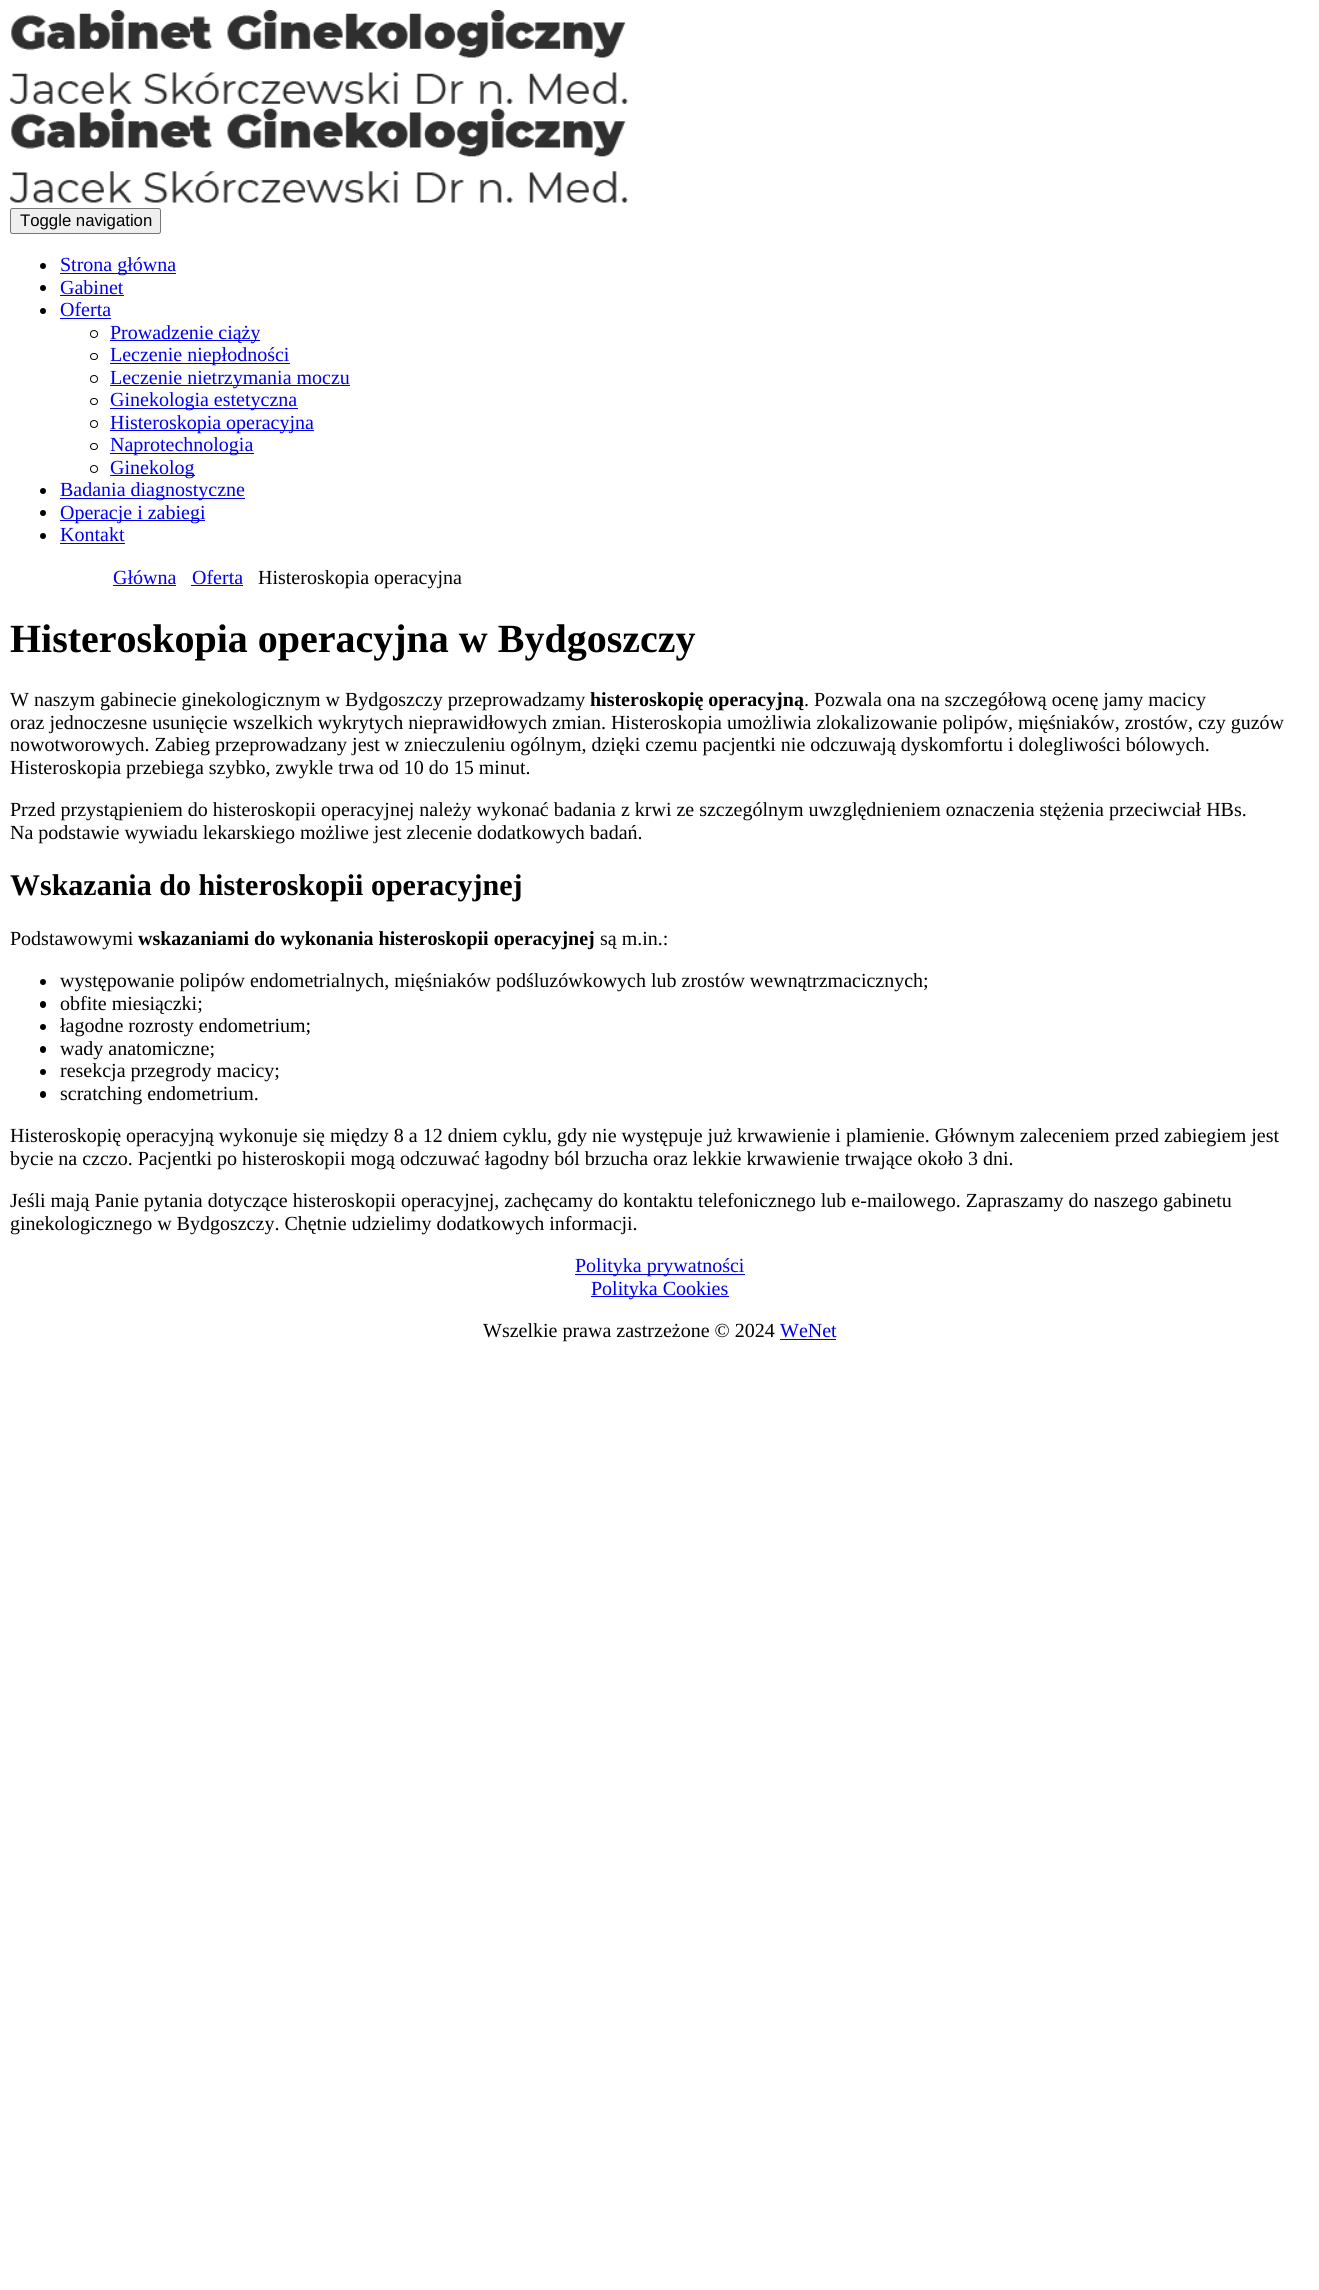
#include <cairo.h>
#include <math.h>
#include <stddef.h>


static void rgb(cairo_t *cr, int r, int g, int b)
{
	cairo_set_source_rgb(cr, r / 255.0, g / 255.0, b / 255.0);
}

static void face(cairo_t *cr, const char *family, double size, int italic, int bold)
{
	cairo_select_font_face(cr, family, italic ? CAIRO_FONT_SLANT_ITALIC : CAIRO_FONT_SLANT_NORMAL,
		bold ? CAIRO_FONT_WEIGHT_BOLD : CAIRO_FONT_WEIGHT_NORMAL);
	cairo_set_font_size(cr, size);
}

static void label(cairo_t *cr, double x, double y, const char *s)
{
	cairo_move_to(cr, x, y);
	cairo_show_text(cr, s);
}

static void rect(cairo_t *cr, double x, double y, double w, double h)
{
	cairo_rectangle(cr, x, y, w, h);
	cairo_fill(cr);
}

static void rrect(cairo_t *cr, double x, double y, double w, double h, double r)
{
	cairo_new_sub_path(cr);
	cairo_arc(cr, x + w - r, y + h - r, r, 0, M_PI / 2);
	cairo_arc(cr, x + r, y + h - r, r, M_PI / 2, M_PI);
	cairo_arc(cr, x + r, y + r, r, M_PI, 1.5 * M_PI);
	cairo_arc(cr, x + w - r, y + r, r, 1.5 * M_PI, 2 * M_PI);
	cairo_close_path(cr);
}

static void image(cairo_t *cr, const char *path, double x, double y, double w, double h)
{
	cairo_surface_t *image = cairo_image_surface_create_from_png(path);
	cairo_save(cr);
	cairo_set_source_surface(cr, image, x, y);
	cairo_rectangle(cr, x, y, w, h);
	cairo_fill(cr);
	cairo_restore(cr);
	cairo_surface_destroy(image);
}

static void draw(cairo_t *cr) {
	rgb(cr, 255, 255, 255);
	cairo_paint(cr);
	image(cr, "image0.png", 10, 10, 618, 94);
	image(cr, "image1.png", 10, 108, 618, 95);
	rgb(cr, 239, 239, 239);
	rrect(cr, 10.5, 208.5, 150, 25, 2);
	cairo_fill_preserve(cr);
	rgb(cr, 118, 118, 118);
	cairo_set_line_width(cr, 1);
	cairo_stroke(cr);
	face(cr, "Liberation Sans", 16.75, 0, 0);
	rgb(cr, 0, 0, 0);
	label(cr, 20, 226, "Toggle navigation");
	cairo_new_path(cr);
	cairo_arc(cr, 43, 266, 3, 0, 2 * M_PI);
	cairo_fill(cr);
	rgb(cr, 0, 0, 238);
	rect(cr, 60, 273, 116, 1);
	face(cr, "Liberation Serif", 20, 0, 0);
	label(cr, 60, 271, "Strona główna");
	rgb(cr, 0, 0, 0);
	cairo_new_path(cr);
	cairo_arc(cr, 43, 288, 3, 0, 2 * M_PI);
	cairo_fill(cr);
	rgb(cr, 0, 0, 238);
	label(cr, 60, 294, "Gabinet");
	rect(cr, 60, 295, 64, 1);
	rgb(cr, 0, 0, 0);
	cairo_new_path(cr);
	cairo_arc(cr, 43, 311, 3, 0, 2 * M_PI);
	cairo_fill(cr);
	rgb(cr, 0, 0, 238);
	label(cr, 60, 316, "Oferta");
	rect(cr, 60, 318, 51, 1);
	cairo_new_path(cr);
	cairo_arc(cr, 94, 334, 3.5, 0, 2 * M_PI);
	rgb(cr, 0, 0, 0);
	cairo_stroke(cr);
	rgb(cr, 0, 0, 238);
	rect(cr, 110, 340, 150, 1);
	label(cr, 110, 339, "Prowadzenie ciąży");
	rrect(cr, 90.5, 353.5, 7, 6, 3);
	rgb(cr, 0, 0, 0);
	cairo_stroke(cr);
	rgb(cr, 0, 0, 238);
	rect(cr, 110, 363, 180, 1);
	label(cr, 110, 361, "Leczenie niepłodności");
	cairo_new_path(cr);
	cairo_arc(cr, 94, 379, 3.5, 0, 2 * M_PI);
	rgb(cr, 0, 0, 0);
	cairo_stroke(cr);
	rgb(cr, 0, 0, 238);
	rect(cr, 110, 385, 240, 1);
	label(cr, 110, 384, "Leczenie nietrzymania moczu");
	rrect(cr, 90.5, 398.5, 7, 6, 3);
	rgb(cr, 0, 0, 0);
	cairo_stroke(cr);
	rgb(cr, 0, 0, 238);
	rect(cr, 110, 408, 188, 1);
	label(cr, 110, 406, "Ginekologia estetyczna");
	cairo_new_path(cr);
	cairo_arc(cr, 94, 424, 3.5, 0, 2 * M_PI);
	rgb(cr, 0, 0, 0);
	cairo_stroke(cr);
	rgb(cr, 0, 0, 238);
	rect(cr, 110, 430, 204, 1);
	label(cr, 110, 429, "Histeroskopia operacyjna");
	rrect(cr, 90.5, 443.5, 7, 6, 3);
	rgb(cr, 0, 0, 0);
	cairo_stroke(cr);
	rgb(cr, 0, 0, 238);
	rect(cr, 110, 453, 144, 1);
	label(cr, 110, 451, "Naprotechnologia");
	cairo_new_path(cr);
	cairo_arc(cr, 94, 469, 3.5, 0, 2 * M_PI);
	rgb(cr, 0, 0, 0);
	cairo_stroke(cr);
	rgb(cr, 0, 0, 238);
	rect(cr, 110, 475, 85, 1);
	label(cr, 110, 474, "Ginekolog");
	rgb(cr, 0, 0, 0);
	cairo_new_path(cr);
	cairo_arc(cr, 43, 491, 3, 0, 2 * M_PI);
	cairo_fill(cr);
	rgb(cr, 0, 0, 238);
	rect(cr, 60, 498, 185, 1);
	label(cr, 60, 496, "Badania diagnostyczne");
	rgb(cr, 0, 0, 0);
	cairo_new_path(cr);
	cairo_arc(cr, 43, 513, 3, 0, 2 * M_PI);
	cairo_fill(cr);
	rgb(cr, 0, 0, 238);
	rect(cr, 60, 520, 145, 1);
	label(cr, 60, 519, "Operacje i zabiegi");
	rgb(cr, 0, 0, 0);
	cairo_new_path(cr);
	cairo_arc(cr, 43, 536, 3, 0, 2 * M_PI);
	cairo_fill(cr);
	rgb(cr, 0, 0, 238);
	label(cr, 60, 541, "Kontakt");
	rect(cr, 60, 543, 65, 1);
	label(cr, 113, 584, "Główna");
	rect(cr, 113, 585, 63, 1);
	label(cr, 192, 584, "Oferta");
	rect(cr, 191, 585, 52, 1);
	rgb(cr, 0, 0, 0);
	label(cr, 258, 584, "Histeroskopia operacyjna");
	face(cr, "Liberation Serif", 40, 0, 1);
	label(cr, 10, 652, "Histeroskopia operacyjna w Bydgoszczy");
	face(cr, "Liberation Serif", 20, 0, 0);
	label(cr, 10, 706, "W naszym gabinecie ginekologicznym w Bydgoszczy przeprowadzamy");
	face(cr, "Liberation Serif", 20, 0, 1);
	label(cr, 590, 706, "histeroskopię operacyjną");
	face(cr, "Liberation Serif", 20, 0, 0);
	label(cr, 804, 706, ". Pozwala ona na szczegółową ocenę jamy macicy");
	label(cr, 10, 729, "oraz jednoczesne usunięcie wszelkich wykrytych nieprawidłowych zmian. Histeroskopia umożliwia zlokalizowanie polipów, mięśniaków, zrostów, czy guzów");
	label(cr, 10, 751, "nowotworowych. Zabieg przeprowadzany jest w znieczuleniu ogólnym, dzięki czemu pacjentki nie odczuwają dyskomfortu i dolegliwości bólowych.");
	label(cr, 10, 774, "Histeroskopia przebiega szybko, zwykle trwa od 10 do 15 minut.");
	label(cr, 10, 816, "Przed przystąpieniem do histeroskopii operacyjnej należy wykonać badania z krwi ze szczególnym uwzględnieniem oznaczenia stężenia przeciwciał HBs.");
	label(cr, 10, 839, "Na podstawie wywiadu lekarskiego możliwe jest zlecenie dodatkowych badań.");
	face(cr, "Liberation Serif", 30, 0, 1);
	label(cr, 10, 895, "Wskazania do histeroskopii operacyjnej");
	face(cr, "Liberation Serif", 20, 0, 0);
	label(cr, 10, 945, "Podstawowymi");
	face(cr, "Liberation Serif", 20, 0, 1);
	label(cr, 138, 945, "wskazaniami do wykonania histeroskopii operacyjnej");
	face(cr, "Liberation Serif", 20, 0, 0);
	label(cr, 600, 945, "są m.in.:");
	cairo_new_path(cr);
	cairo_arc(cr, 43, 982, 3, 0, 2 * M_PI);
	cairo_fill(cr);
	label(cr, 60, 987, "występowanie polipów endometrialnych, mięśniaków podśluzówkowych lub zrostów wewnątrzmacicznych;");
	rrect(cr, 40, 1001, 6, 7, 3);
	cairo_fill(cr);
	label(cr, 60, 1010, "obfite miesiączki;");
	cairo_new_path(cr);
	cairo_arc(cr, 43, 1027, 3, 0, 2 * M_PI);
	cairo_fill(cr);
	label(cr, 60, 1032, "łagodne rozrosty endometrium;");
	rrect(cr, 40, 1046, 6, 7, 3);
	cairo_fill(cr);
	label(cr, 60, 1055, "wady anatomiczne;");
	cairo_new_path(cr);
	cairo_arc(cr, 43, 1072, 3, 0, 2 * M_PI);
	cairo_fill(cr);
	label(cr, 60, 1077, "resekcja przegrody macicy;");
	rrect(cr, 40, 1091, 6, 7, 3);
	cairo_fill(cr);
	label(cr, 60, 1100, "scratching endometrium.");
	label(cr, 10, 1142, "Histeroskopię operacyjną wykonuje się między 8 a 12 dniem cyklu, gdy nie występuje już krwawienie i plamienie. Głównym zaleceniem przed zabiegiem jest");
	label(cr, 10, 1165, "bycie na czczo. Pacjentki po histeroskopii mogą odczuwać łagodny ból brzucha oraz lekkie krwawienie trwające około 3 dni.");
	label(cr, 10, 1207, "Jeśli mają Panie pytania dotyczące histeroskopii operacyjnej, zachęcamy do kontaktu telefonicznego lub e-mailowego. Zapraszamy do naszego gabinetu");
	label(cr, 10, 1230, "ginekologicznego w Bydgoszczy. Chętnie udzielimy dodatkowych informacji.");
	rgb(cr, 0, 0, 238);
	rect(cr, 575, 1274, 170, 1);
	label(cr, 575, 1272, "Polityka prywatności");
	rect(cr, 591, 1296, 138, 1);
	label(cr, 591, 1295, "Polityka Cookies");
	rgb(cr, 0, 0, 0);
	label(cr, 483, 1337, "Wszelkie prawa zastrzeżone © 2024");
	rgb(cr, 0, 0, 238);
	label(cr, 780, 1337, "WeNet");
	rect(cr, 780, 1339, 56, 1);
}

int main(void) {
	cairo_surface_t *surface = cairo_image_surface_create(CAIRO_FORMAT_RGB24, 1319, 2290);
	cairo_t *cr = cairo_create(surface);
	cairo_font_options_t *options = cairo_font_options_create();
	cairo_font_options_set_hint_metrics(options, CAIRO_HINT_METRICS_OFF);
	cairo_font_options_set_hint_style(options, CAIRO_HINT_STYLE_NONE);
	cairo_set_font_options(cr, options);
	cairo_set_miter_limit(cr, 4);
	draw(cr);
	cairo_surface_write_to_png(surface, "render.png");
	cairo_font_options_destroy(options);
	cairo_destroy(cr);
	cairo_surface_destroy(surface);
	return 0;
}
